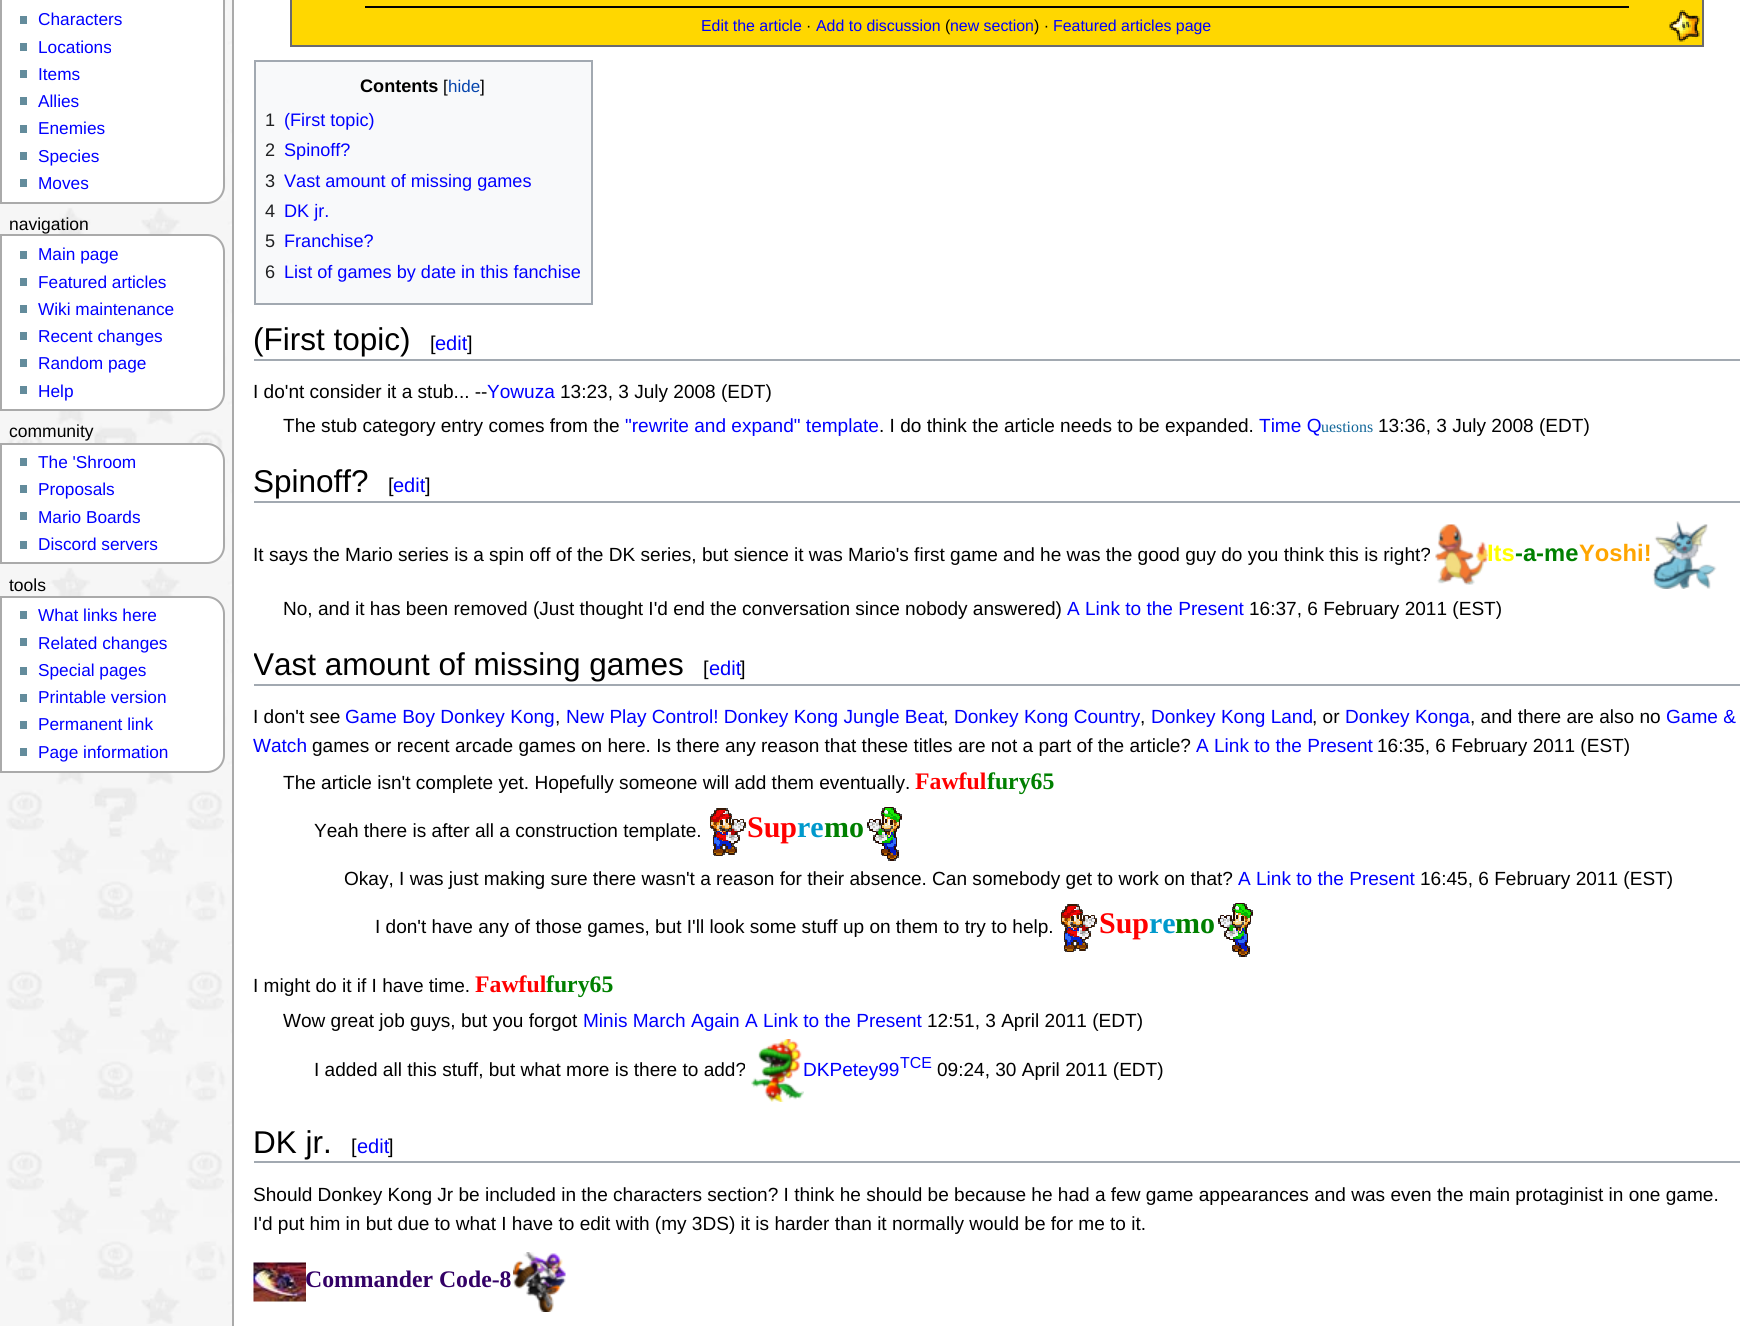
#include <cairo.h>
#include <math.h>
#include <stddef.h>


static void rgb(cairo_t *cr, int r, int g, int b)
{
	cairo_set_source_rgb(cr, r / 255.0, g / 255.0, b / 255.0);
}

static void face(cairo_t *cr, const char *family, double size, int italic, int bold)
{
	cairo_select_font_face(cr, family, italic ? CAIRO_FONT_SLANT_ITALIC : CAIRO_FONT_SLANT_NORMAL,
		bold ? CAIRO_FONT_WEIGHT_BOLD : CAIRO_FONT_WEIGHT_NORMAL);
	cairo_set_font_size(cr, size);
}

static void label(cairo_t *cr, double x, double y, const char *s)
{
	cairo_move_to(cr, x, y);
	cairo_show_text(cr, s);
}

static void rect(cairo_t *cr, double x, double y, double w, double h)
{
	cairo_rectangle(cr, x, y, w, h);
	cairo_fill(cr);
}

static void image(cairo_t *cr, const char *path, double x, double y, double w, double h)
{
	cairo_surface_t *image = cairo_image_surface_create_from_png(path);
	cairo_save(cr);
	cairo_set_source_surface(cr, image, x, y);
	cairo_rectangle(cr, x, y, w, h);
	cairo_fill(cr);
	cairo_restore(cr);
	cairo_surface_destroy(image);
}

static void draw(cairo_t *cr) {
	rgb(cr, 246, 246, 246);
	cairo_paint(cr);
	image(cr, "image0.png", 6, 0, 226, 1324);
	rgb(cr, 255, 255, 255);
	cairo_new_path(cr);
	cairo_move_to(cr, 1, -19);
	cairo_line_to(cr, 207, -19);
	cairo_curve_to(cr, 216.5, -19, 224, -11.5, 224, -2);
	cairo_line_to(cr, 224, 186);
	cairo_curve_to(cr, 224, 195.5, 216.5, 203, 207, 203);
	cairo_line_to(cr, 1, 203);
	cairo_close_path(cr);
	cairo_fill_preserve(cr);
	rgb(cr, 170, 170, 170);
	cairo_stroke(cr);
	rgb(cr, 99, 140, 156);
	rect(cr, 20, 16, 7, 8);
	face(cr, "Liberation Sans", 17.25, 0, 0);
	rgb(cr, 0, 0, 255);
	label(cr, 38, 25, "Characters");
	rgb(cr, 99, 140, 156);
	rect(cr, 20, 43, 7, 8);
	rgb(cr, 0, 0, 255);
	label(cr, 38, 53, "Locations");
	rgb(cr, 99, 140, 156);
	rect(cr, 20, 70, 7, 8);
	rgb(cr, 0, 0, 255);
	label(cr, 38, 80, "Items");
	rgb(cr, 99, 140, 156);
	rect(cr, 20, 97, 7, 8);
	rgb(cr, 0, 0, 255);
	label(cr, 38, 107, "Allies");
	rgb(cr, 99, 140, 156);
	rect(cr, 20, 125, 7, 8);
	rgb(cr, 0, 0, 255);
	label(cr, 38, 134, "Enemies");
	rgb(cr, 99, 140, 156);
	rect(cr, 20, 152, 7, 8);
	rgb(cr, 0, 0, 255);
	label(cr, 38, 162, "Species");
	rgb(cr, 99, 140, 156);
	rect(cr, 20, 179, 7, 8);
	rgb(cr, 0, 0, 255);
	label(cr, 38, 189, "Moves");
	face(cr, "Liberation Sans", 17.5, 0, 0);
	rgb(cr, 0, 0, 0);
	label(cr, 9, 230, "navigation");
	rgb(cr, 255, 255, 255);
	cairo_new_path(cr);
	cairo_move_to(cr, 1, 235);
	cairo_line_to(cr, 207, 235);
	cairo_curve_to(cr, 216.5, 235, 224, 242.5, 224, 252);
	cairo_line_to(cr, 224, 393);
	cairo_curve_to(cr, 224, 402.5, 216.5, 410, 207, 410);
	cairo_line_to(cr, 1, 410);
	cairo_close_path(cr);
	cairo_fill_preserve(cr);
	rgb(cr, 170, 170, 170);
	cairo_stroke(cr);
	rgb(cr, 99, 140, 156);
	rect(cr, 20, 251, 7, 8);
	face(cr, "Liberation Sans", 17.25, 0, 0);
	rgb(cr, 0, 0, 255);
	label(cr, 38, 260, "Main page");
	rgb(cr, 99, 140, 156);
	rect(cr, 20, 278, 7, 8);
	rgb(cr, 0, 0, 255);
	label(cr, 38, 288, "Featured articles");
	rgb(cr, 99, 140, 156);
	rect(cr, 20, 305, 7, 8);
	rgb(cr, 0, 0, 255);
	label(cr, 38, 315, "Wiki maintenance");
	rgb(cr, 99, 140, 156);
	rect(cr, 20, 332, 7, 8);
	rgb(cr, 0, 0, 255);
	label(cr, 38, 342, "Recent changes");
	rgb(cr, 99, 140, 156);
	rect(cr, 20, 359, 7, 8);
	rgb(cr, 0, 0, 255);
	label(cr, 38, 369, "Random page");
	rgb(cr, 99, 140, 156);
	rect(cr, 20, 386, 7, 8);
	rgb(cr, 0, 0, 255);
	label(cr, 38, 397, "Help");
	face(cr, "Liberation Sans", 17.5, 0, 0);
	rgb(cr, 0, 0, 0);
	label(cr, 9, 437, "community");
	rgb(cr, 255, 255, 255);
	cairo_new_path(cr);
	cairo_move_to(cr, 1, 444);
	cairo_line_to(cr, 207, 444);
	cairo_curve_to(cr, 216.5, 444, 224, 451.5, 224, 461);
	cairo_line_to(cr, 224, 546);
	cairo_curve_to(cr, 224, 555.5, 216.5, 563, 207, 563);
	cairo_line_to(cr, 1, 563);
	cairo_close_path(cr);
	cairo_fill_preserve(cr);
	rgb(cr, 170, 170, 170);
	cairo_stroke(cr);
	rgb(cr, 99, 140, 156);
	rect(cr, 20, 458, 7, 8);
	face(cr, "Liberation Sans", 17.25, 0, 0);
	rgb(cr, 0, 0, 255);
	label(cr, 38, 468, "The 'Shroom");
	rgb(cr, 99, 140, 156);
	rect(cr, 20, 485, 7, 8);
	rgb(cr, 0, 0, 255);
	label(cr, 38, 495, "Proposals");
	rgb(cr, 99, 140, 156);
	rect(cr, 20, 512, 7, 8);
	rgb(cr, 0, 0, 255);
	label(cr, 38, 523, "Mario Boards");
	rgb(cr, 99, 140, 156);
	rect(cr, 20, 541, 7, 8);
	rgb(cr, 0, 0, 255);
	label(cr, 38, 550, "Discord servers");
	face(cr, "Liberation Sans", 17.5, 0, 0);
	rgb(cr, 0, 0, 0);
	label(cr, 9, 591, "tools");
	rgb(cr, 255, 255, 255);
	cairo_new_path(cr);
	cairo_move_to(cr, 1, 597);
	cairo_line_to(cr, 207, 597);
	cairo_curve_to(cr, 216.5, 597, 224, 604.5, 224, 614);
	cairo_line_to(cr, 224, 755);
	cairo_curve_to(cr, 224, 764.5, 216.5, 772, 207, 772);
	cairo_line_to(cr, 1, 772);
	cairo_close_path(cr);
	cairo_fill_preserve(cr);
	rgb(cr, 170, 170, 170);
	cairo_stroke(cr);
	rgb(cr, 99, 140, 156);
	rect(cr, 20, 611, 7, 8);
	face(cr, "Liberation Sans", 17.25, 0, 0);
	rgb(cr, 0, 0, 255);
	label(cr, 38, 621, "What links here");
	rgb(cr, 99, 140, 156);
	rect(cr, 20, 638, 7, 8);
	rgb(cr, 0, 0, 255);
	label(cr, 38, 649, "Related changes");
	rgb(cr, 99, 140, 156);
	rect(cr, 20, 667, 7, 8);
	rgb(cr, 0, 0, 255);
	label(cr, 38, 676, "Special pages");
	rgb(cr, 99, 140, 156);
	rect(cr, 20, 694, 7, 8);
	rgb(cr, 0, 0, 255);
	label(cr, 38, 703, "Printable version");
	rgb(cr, 99, 140, 156);
	rect(cr, 20, 721, 7, 8);
	rgb(cr, 0, 0, 255);
	label(cr, 38, 730, "Permanent link");
	rgb(cr, 99, 140, 156);
	rect(cr, 20, 748, 7, 8);
	rgb(cr, 0, 0, 255);
	label(cr, 38, 758, "Page information");
	rgb(cr, 255, 255, 255);
	rect(cr, 234, 0, 1525, 1326);
	rgb(cr, 170, 170, 170);
	cairo_set_fill_rule(cr, CAIRO_FILL_RULE_EVEN_ODD);
	cairo_new_path(cr);
	cairo_move_to(cr, 252, -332);
	cairo_line_to(cr, 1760, -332);
	cairo_line_to(cr, 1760, 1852);
	cairo_line_to(cr, 252, 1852);
	cairo_curve_to(cr, 241, 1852, 232, 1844, 232, 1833);
	cairo_line_to(cr, 232, -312);
	cairo_curve_to(cr, 232, -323, 241, -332, 252, -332);
	cairo_close_path(cr);
	cairo_move_to(cr, 252, -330);
	cairo_line_to(cr, 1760, -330);
	cairo_line_to(cr, 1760, 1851);
	cairo_line_to(cr, 252, 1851);
	cairo_curve_to(cr, 242, 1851, 234, 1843, 234, 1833);
	cairo_line_to(cr, 234, -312);
	cairo_curve_to(cr, 234, -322, 242, -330, 252, -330);
	cairo_close_path(cr);
	cairo_fill(cr);
	rgb(cr, 255, 215, 0);
	cairo_rectangle(cr, 291, -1, 1412, 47);
	cairo_fill_preserve(cr);
	rgb(cr, 107, 106, 111);
	cairo_stroke(cr);
	rgb(cr, 0, 0, 0);
	rect(cr, 365, 6, 1264, 2);
	face(cr, "Liberation Sans", 15.9, 0, 0);
	rgb(cr, 0, 0, 255);
	label(cr, 701, 31, "Edit the article");
	rgb(cr, 0, 0, 0);
	label(cr, 806, 31, "·");
	rgb(cr, 0, 0, 255);
	label(cr, 816, 31, "Add to discussion");
	rgb(cr, 0, 0, 0);
	label(cr, 945, 31, "(");
	rgb(cr, 0, 0, 255);
	label(cr, 950, 31, "new section");
	rgb(cr, 0, 0, 0);
	label(cr, 1034, 31, ") ·");
	rgb(cr, 0, 0, 255);
	label(cr, 1053, 31, "Featured articles page");
	image(cr, "image1.png", 1669, 10, 31, 32);
	rgb(cr, 248, 249, 250);
	cairo_rectangle(cr, 255, 61, 337, 243);
	cairo_fill_preserve(cr);
	rgb(cr, 162, 169, 177);
	cairo_stroke(cr);
	face(cr, "Liberation Sans", 18.1, 0, 1);
	rgb(cr, 0, 0, 0);
	label(cr, 360, 92, "Contents");
	face(cr, "Liberation Sans", 17, 0, 0);
	label(cr, 443, 92, "[");
	rgb(cr, 6, 69, 173);
	label(cr, 448, 92, "hide");
	rgb(cr, 0, 0, 0);
	label(cr, 480, 92, "]");
	face(cr, "Liberation Sans", 18.1, 0, 0);
	rgb(cr, 32, 33, 34);
	label(cr, 265, 126, "1");
	rgb(cr, 0, 0, 255);
	label(cr, 284, 126, "(First topic)");
	rgb(cr, 32, 33, 34);
	label(cr, 265, 156, "2");
	rgb(cr, 0, 0, 255);
	label(cr, 284, 156, "Spinoff?");
	rgb(cr, 32, 33, 34);
	label(cr, 265, 187, "3");
	rgb(cr, 0, 0, 255);
	label(cr, 284, 187, "Vast amount of missing games");
	rgb(cr, 32, 33, 34);
	label(cr, 265, 217, "4");
	rgb(cr, 0, 0, 255);
	label(cr, 284, 217, "DK jr.");
	rgb(cr, 32, 33, 34);
	label(cr, 265, 247, "5");
	rgb(cr, 0, 0, 255);
	label(cr, 284, 247, "Franchise?");
	rgb(cr, 32, 33, 34);
	label(cr, 265, 278, "6");
	rgb(cr, 0, 0, 255);
	label(cr, 284, 278, "List of games by date in this fanchise");
	rgb(cr, 162, 169, 177);
	rect(cr, 254, 359, 1486, 2);
	face(cr, "Liberation Sans", 31.5, 0, 0);
	rgb(cr, 0, 0, 0);
	label(cr, 253, 350, "(First topic)");
	face(cr, "Liberation Sans", 20, 0, 0);
	label(cr, 430, 350, "[");
	rgb(cr, 0, 0, 255);
	label(cr, 435, 350, "edit");
	rgb(cr, 0, 0, 0);
	label(cr, 467, 350, "]");
	face(cr, "Liberation Sans", 19.05, 0, 0);
	label(cr, 253, 398, "I do'nt consider it a stub... --");
	rgb(cr, 0, 0, 255);
	label(cr, 487, 398, "Yowuza");
	rgb(cr, 0, 0, 0);
	label(cr, 560, 398, "13:23, 3 July 2008 (EDT)");
	label(cr, 283, 432, "The stub category entry comes from the");
	rgb(cr, 0, 0, 255);
	label(cr, 625, 432, "\"rewrite and expand\" template");
	rgb(cr, 0, 0, 0);
	label(cr, 879, 432, ". I do think the article needs to be expanded.");
	rgb(cr, 0, 0, 255);
	label(cr, 1259, 432, "Time Q");
	face(cr, "Liberation Serif", 15.9, 0, 0);
	rgb(cr, 17, 102, 153);
	label(cr, 1321, 432, "uestions");
	face(cr, "Liberation Sans", 19.05, 0, 0);
	rgb(cr, 0, 0, 0);
	label(cr, 1378, 432, "13:36, 3 July 2008 (EDT)");
	rgb(cr, 162, 169, 177);
	rect(cr, 254, 501, 1486, 2);
	face(cr, "Liberation Sans", 31.5, 0, 0);
	rgb(cr, 0, 0, 0);
	label(cr, 253, 492, "Spinoff?");
	face(cr, "Liberation Sans", 20, 0, 0);
	label(cr, 388, 492, "[");
	rgb(cr, 0, 0, 255);
	label(cr, 393, 492, "edit");
	rgb(cr, 0, 0, 0);
	label(cr, 425, 492, "]");
	face(cr, "Liberation Sans", 19.05, 0, 0);
	label(cr, 253, 561, "It says the Mario series is a spin off of the DK series, but sience it was Mario's first game and he was the good guy do you think this is right?");
	image(cr, "image2.png", 1435, 524, 53, 61);
	face(cr, "Liberation Sans", 23.75, 0, 1);
	rgb(cr, 255, 255, 0);
	label(cr, 1487, 561, "Its");
	rgb(cr, 0, 128, 0);
	label(cr, 1515, 561, "-a-me");
	rgb(cr, 255, 165, 0);
	label(cr, 1579, 561, "Yoshi!");
	image(cr, "image3.png", 1652, 521, 65, 68);
	face(cr, "Liberation Sans", 19.05, 0, 0);
	rgb(cr, 0, 0, 0);
	label(cr, 283, 615, "No, and it has been removed (Just thought I'd end the conversation since nobody answered)");
	rgb(cr, 0, 0, 255);
	label(cr, 1067, 615, "A Link to the Present");
	rgb(cr, 0, 0, 0);
	label(cr, 1249, 615, "16:37, 6 February 2011 (EST)");
	rgb(cr, 162, 169, 177);
	rect(cr, 254, 684, 1486, 2);
	cairo_save(cr);
	cairo_set_fill_rule(cr, CAIRO_FILL_RULE_WINDING);
	cairo_rectangle(cr, 254, 635, 1486, 49);
	cairo_clip(cr);
	face(cr, "Liberation Sans", 31.5, 0, 0);
	rgb(cr, 0, 0, 0);
	label(cr, 253, 675, "Vast amount of missing games");
	cairo_restore(cr);
	face(cr, "Liberation Sans", 20, 0, 0);
	rgb(cr, 0, 0, 0);
	label(cr, 703, 675, "[");
	rgb(cr, 0, 0, 255);
	label(cr, 709, 675, "edit");
	rgb(cr, 0, 0, 0);
	label(cr, 740, 675, "]");
	face(cr, "Liberation Sans", 19.05, 0, 0);
	label(cr, 253, 723, "I don't see");
	rgb(cr, 0, 0, 255);
	label(cr, 345, 723, "Game Boy Donkey Kong");
	rgb(cr, 0, 0, 0);
	label(cr, 555, 723, ",");
	rgb(cr, 0, 0, 255);
	label(cr, 566, 723, "New Play Control! Donkey Kong Jungle Beat");
	rgb(cr, 0, 0, 0);
	label(cr, 943, 723, ",");
	rgb(cr, 0, 0, 255);
	label(cr, 954, 723, "Donkey Kong Country");
	rgb(cr, 0, 0, 0);
	label(cr, 1140, 723, ",");
	rgb(cr, 0, 0, 255);
	label(cr, 1151, 723, "Donkey Kong Land");
	rgb(cr, 0, 0, 0);
	label(cr, 1312, 723, ", or");
	rgb(cr, 0, 0, 255);
	label(cr, 1345, 723, "Donkey Konga");
	rgb(cr, 0, 0, 0);
	label(cr, 1470, 723, ", and there are also no");
	rgb(cr, 0, 0, 255);
	label(cr, 1666, 723, "Game &");
	label(cr, 253, 752, "Watch");
	rgb(cr, 0, 0, 0);
	label(cr, 312, 752, "games or recent arcade games on here. Is there any reason that these titles are not a part of the article?");
	rgb(cr, 0, 0, 255);
	label(cr, 1196, 752, "A Link to the Present");
	rgb(cr, 0, 0, 0);
	label(cr, 1377, 752, "16:35, 6 February 2011 (EST)");
	label(cr, 283, 789, "The article isn't complete yet. Hopefully someone will add them eventually.");
	face(cr, "Liberation Serif", 23.75, 0, 1);
	rgb(cr, 255, 0, 0);
	label(cr, 915, 789, "Fawful");
	rgb(cr, 0, 128, 0);
	label(cr, 987, 789, "fury65");
	face(cr, "Liberation Sans", 19.05, 0, 0);
	rgb(cr, 0, 0, 0);
	label(cr, 314, 837, "Yeah there is after all a construction template.");
	image(cr, "image4.png", 710, 808, 36, 48);
	face(cr, "Liberation Serif", 30, 0, 1);
	rgb(cr, 255, 0, 0);
	label(cr, 747, 837, "Sup");
	rgb(cr, 0, 153, 204);
	label(cr, 797, 837, "re");
	rgb(cr, 0, 128, 0);
	label(cr, 824, 837, "mo");
	image(cr, "image5.png", 867, 807, 35, 54);
	face(cr, "Liberation Sans", 19.05, 0, 0);
	rgb(cr, 0, 0, 0);
	label(cr, 344, 885, "Okay, I was just making sure there wasn't a reason for their absence. Can somebody get to work on that?");
	rgb(cr, 0, 0, 255);
	label(cr, 1238, 885, "A Link to the Present");
	rgb(cr, 0, 0, 0);
	label(cr, 1420, 885, "16:45, 6 February 2011 (EST)");
	label(cr, 375, 933, "I don't have any of those games, but I'll look some stuff up on them to try to help.");
	image(cr, "image4.png", 1061, 904, 36, 48);
	face(cr, "Liberation Serif", 30, 0, 1);
	rgb(cr, 255, 0, 0);
	label(cr, 1099, 933, "Sup");
	rgb(cr, 0, 153, 204);
	label(cr, 1149, 933, "re");
	rgb(cr, 0, 128, 0);
	label(cr, 1175, 933, "mo");
	image(cr, "image5.png", 1218, 903, 35, 54);
	face(cr, "Liberation Sans", 19.05, 0, 0);
	rgb(cr, 0, 0, 0);
	label(cr, 253, 992, "I might do it if I have time.");
	face(cr, "Liberation Serif", 23.75, 0, 1);
	rgb(cr, 255, 0, 0);
	label(cr, 475, 992, "Fawful");
	rgb(cr, 0, 128, 0);
	label(cr, 546, 992, "fury65");
	face(cr, "Liberation Sans", 19.05, 0, 0);
	rgb(cr, 0, 0, 0);
	label(cr, 283, 1027, "Wow great job guys, but you forgot");
	rgb(cr, 0, 0, 255);
	label(cr, 583, 1027, "Minis March Again A Link to the Present");
	rgb(cr, 0, 0, 0);
	label(cr, 927, 1027, "12:51, 3 April 2011 (EDT)");
	label(cr, 314, 1076, "I added all this stuff, but what more is there to add?");
	image(cr, "image6.png", 751, 1039, 53, 63);
	rgb(cr, 0, 0, 255);
	label(cr, 803, 1076, "DKPetey99");
	face(cr, "Liberation Sans", 15.9, 0, 0);
	label(cr, 900, 1068, "TCE");
	face(cr, "Liberation Sans", 19.05, 0, 0);
	rgb(cr, 0, 0, 0);
	label(cr, 937, 1076, "09:24, 30 April 2011 (EDT)");
	rgb(cr, 162, 169, 177);
	rect(cr, 254, 1161, 1486, 2);
	face(cr, "Liberation Sans", 31.5, 0, 0);
	rgb(cr, 0, 0, 0);
	label(cr, 253, 1153, "DK jr.");
	face(cr, "Liberation Sans", 20, 0, 0);
	label(cr, 351, 1153, "[");
	rgb(cr, 0, 0, 255);
	label(cr, 357, 1153, "edit");
	rgb(cr, 0, 0, 0);
	label(cr, 388, 1153, "]");
	face(cr, "Liberation Sans", 19.05, 0, 0);
	label(cr, 253, 1201, "Should Donkey Kong Jr be included in the characters section? I think he should be because he had a few game appearances and was even the main protaginist in one game.");
	label(cr, 253, 1230, "I'd put him in but due to what I have to edit with (my 3DS) it is harder than it normally would be for me to it.");
	image(cr, "image7.png", 253, 1262, 53, 40);
	face(cr, "Liberation Serif", 23.75, 0, 1);
	rgb(cr, 51, 0, 102);
	label(cr, 305, 1287, "Commander Code-8");
	image(cr, "image8.png", 513, 1252, 53, 60);
}

int main(void) {
	cairo_surface_t *surface = cairo_image_surface_create(CAIRO_FORMAT_RGB24, 1759, 1326);
	cairo_t *cr = cairo_create(surface);
	cairo_font_options_t *options = cairo_font_options_create();
	cairo_font_options_set_hint_metrics(options, CAIRO_HINT_METRICS_OFF);
	cairo_font_options_set_hint_style(options, CAIRO_HINT_STYLE_NONE);
	cairo_set_font_options(cr, options);
	cairo_set_miter_limit(cr, 4);
	draw(cr);
	cairo_surface_write_to_png(surface, "render.png");
	cairo_font_options_destroy(options);
	cairo_destroy(cr);
	cairo_surface_destroy(surface);
	return 0;
}
